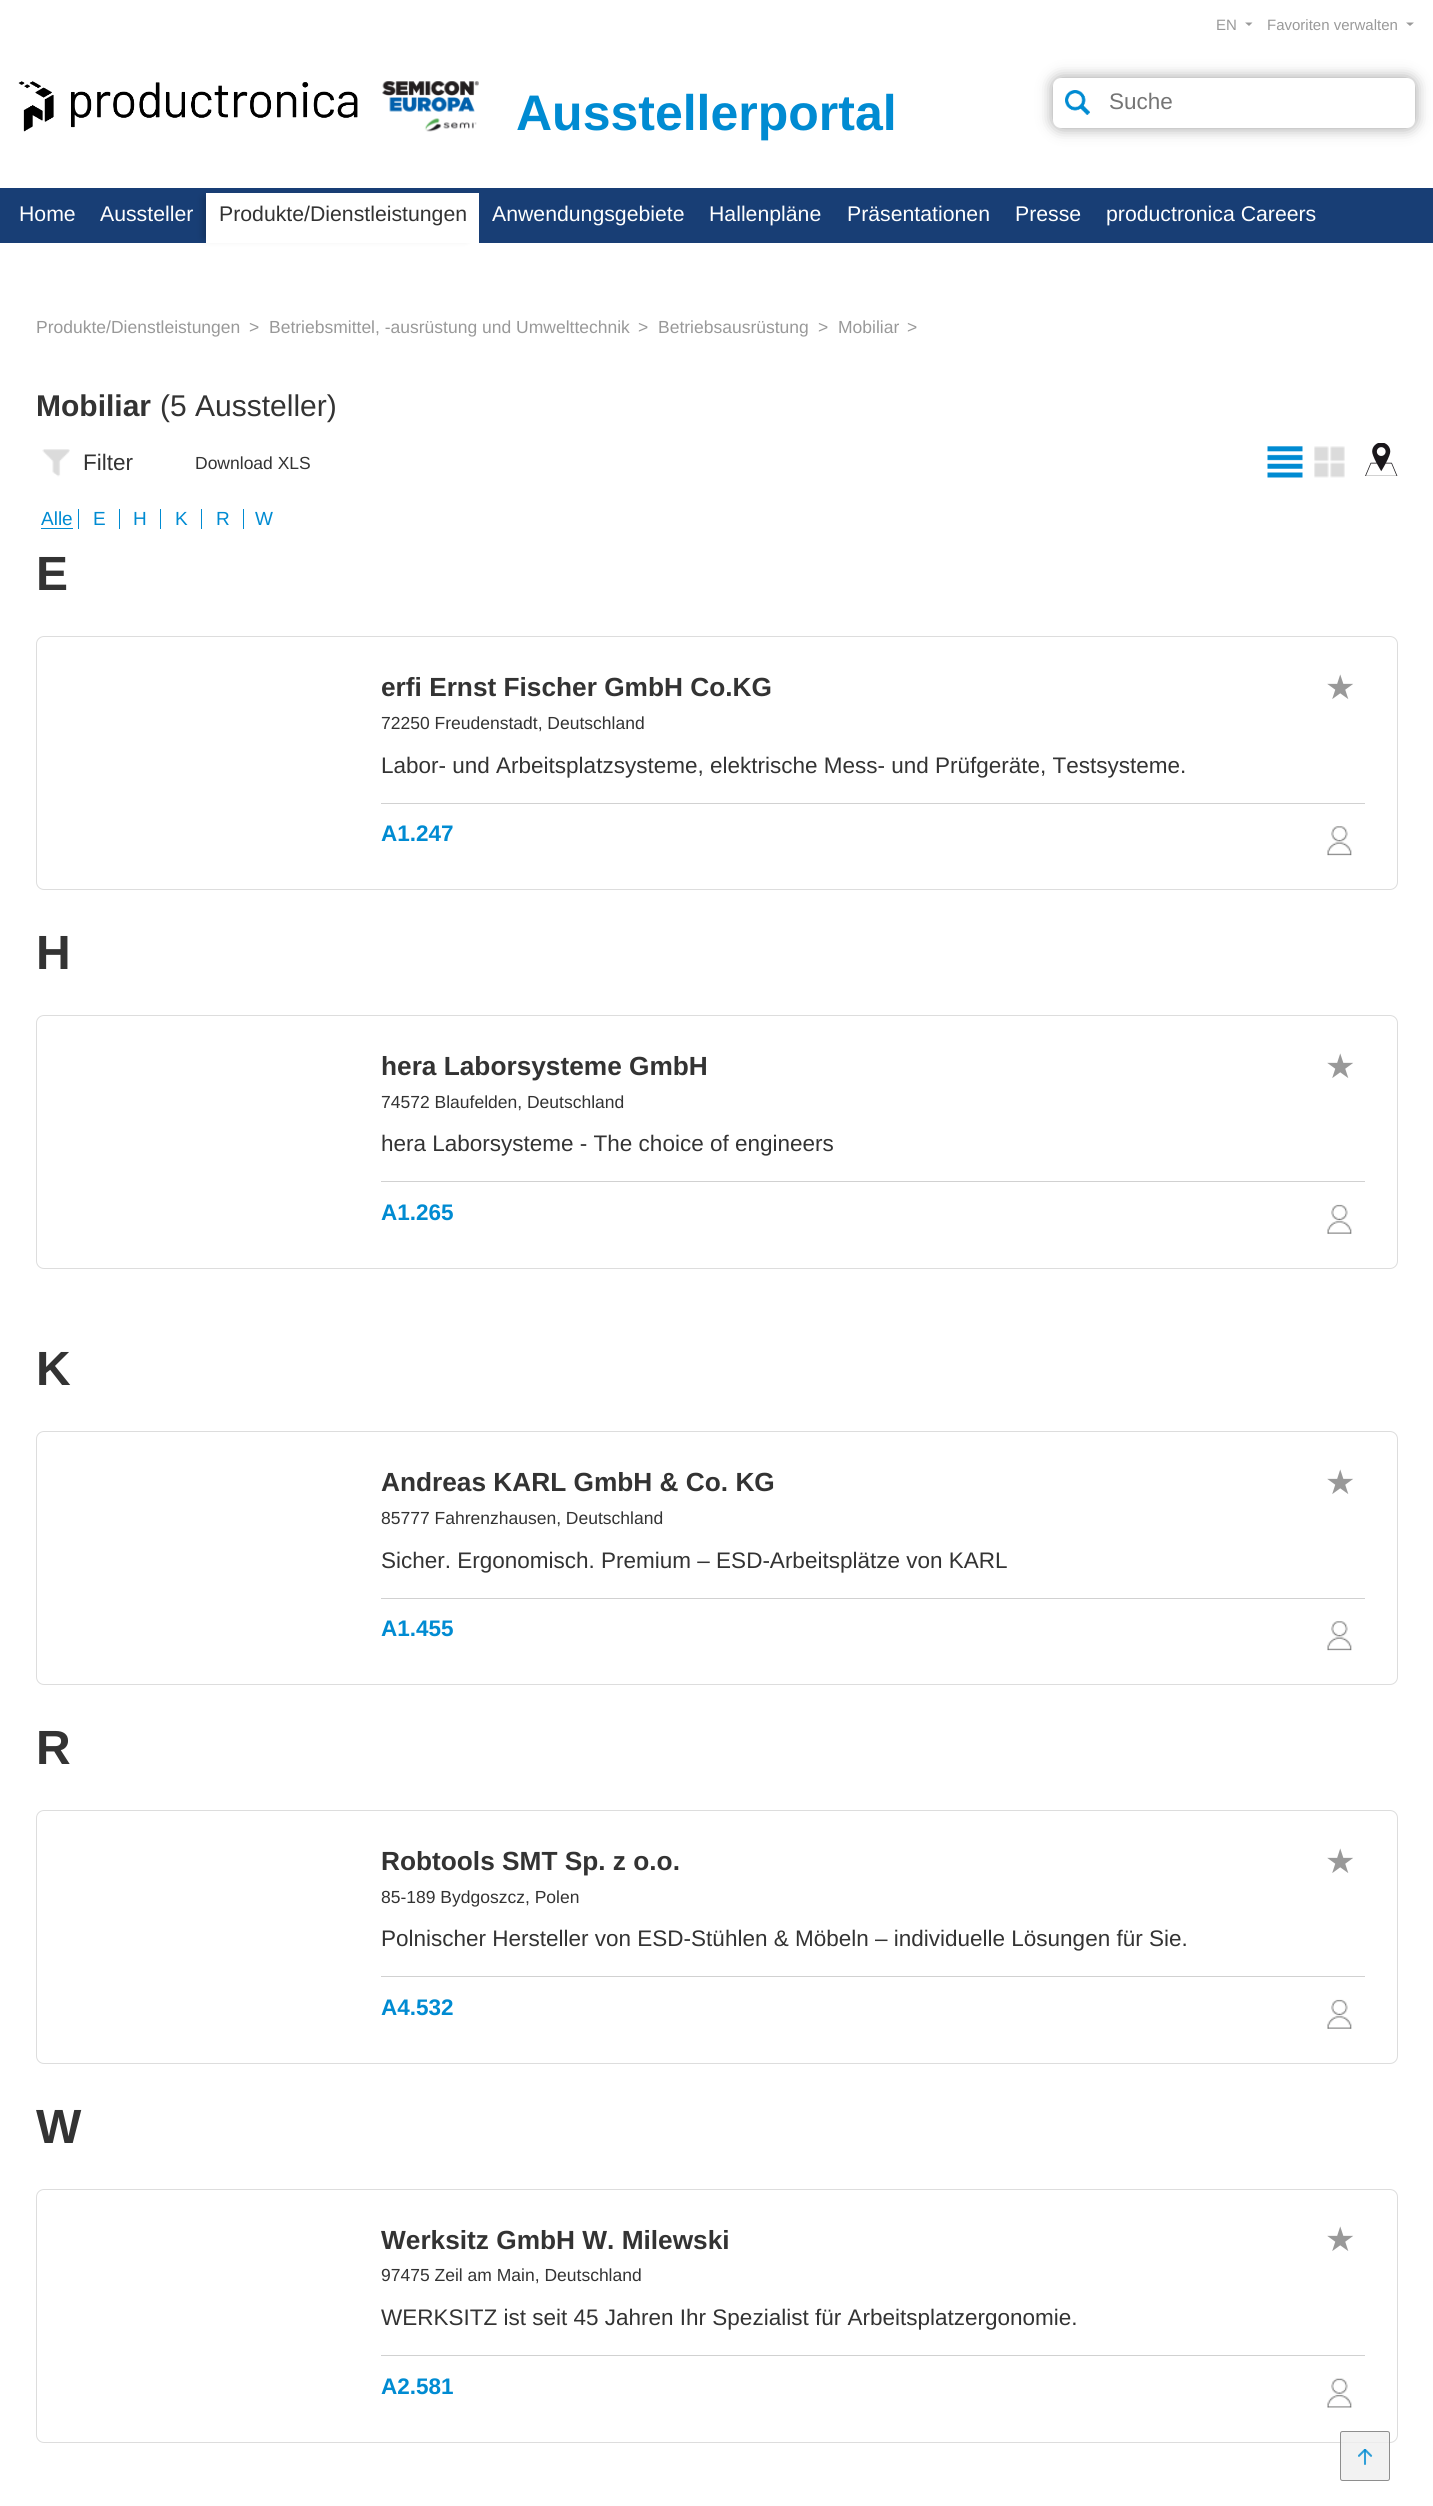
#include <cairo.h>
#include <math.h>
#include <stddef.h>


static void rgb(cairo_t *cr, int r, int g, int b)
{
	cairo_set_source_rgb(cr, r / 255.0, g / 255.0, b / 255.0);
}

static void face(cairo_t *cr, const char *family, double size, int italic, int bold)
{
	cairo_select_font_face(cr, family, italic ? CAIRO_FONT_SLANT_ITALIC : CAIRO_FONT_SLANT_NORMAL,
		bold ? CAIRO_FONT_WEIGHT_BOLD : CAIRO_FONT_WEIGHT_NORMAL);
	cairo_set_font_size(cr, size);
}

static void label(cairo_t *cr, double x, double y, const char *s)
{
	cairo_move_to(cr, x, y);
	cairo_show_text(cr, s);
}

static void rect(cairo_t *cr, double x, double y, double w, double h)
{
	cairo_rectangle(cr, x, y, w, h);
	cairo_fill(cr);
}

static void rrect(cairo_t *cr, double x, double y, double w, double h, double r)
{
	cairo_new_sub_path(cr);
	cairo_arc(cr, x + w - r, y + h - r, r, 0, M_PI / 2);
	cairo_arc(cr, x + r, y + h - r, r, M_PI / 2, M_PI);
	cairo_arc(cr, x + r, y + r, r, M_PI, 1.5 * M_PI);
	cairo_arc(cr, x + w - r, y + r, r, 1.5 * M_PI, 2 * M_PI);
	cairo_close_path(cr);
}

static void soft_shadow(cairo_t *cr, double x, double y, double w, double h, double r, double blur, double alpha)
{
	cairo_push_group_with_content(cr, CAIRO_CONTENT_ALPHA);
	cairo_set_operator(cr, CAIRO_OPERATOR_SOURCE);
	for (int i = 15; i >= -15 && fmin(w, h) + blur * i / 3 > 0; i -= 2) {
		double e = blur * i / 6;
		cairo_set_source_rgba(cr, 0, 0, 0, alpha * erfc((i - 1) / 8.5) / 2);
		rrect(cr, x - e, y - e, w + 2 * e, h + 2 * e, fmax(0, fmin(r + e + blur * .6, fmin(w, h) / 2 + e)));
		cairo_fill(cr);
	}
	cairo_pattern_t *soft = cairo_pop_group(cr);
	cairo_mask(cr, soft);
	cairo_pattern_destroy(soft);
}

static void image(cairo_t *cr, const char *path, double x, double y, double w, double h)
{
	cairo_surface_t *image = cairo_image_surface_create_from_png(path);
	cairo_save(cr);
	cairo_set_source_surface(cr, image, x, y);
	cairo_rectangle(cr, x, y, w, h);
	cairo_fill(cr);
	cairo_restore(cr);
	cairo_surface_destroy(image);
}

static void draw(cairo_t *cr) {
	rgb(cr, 255, 255, 255);
	cairo_paint(cr);
	face(cr, "Liberation Sans", 15, 0, 0);
	rgb(cr, 153, 153, 153);
	label(cr, 1216, 30, "EN");
	cairo_new_path(cr);
	cairo_move_to(cr, 1245, 22.5);
	cairo_line_to(cr, 1252.5, 22.5);
	cairo_line_to(cr, 1249, 26);
	cairo_close_path(cr);
	cairo_fill(cr);
	label(cr, 1267, 30, "Favoriten verwalten");
	cairo_new_path(cr);
	cairo_move_to(cr, 1406, 22.5);
	cairo_line_to(cr, 1414, 22.5);
	cairo_line_to(cr, 1410, 26);
	cairo_close_path(cr);
	cairo_fill(cr);
	image(cr, "image0.png", 18, 81, 340, 51);
	image(cr, "image1.png", 382, 81, 97, 51);
	face(cr, "Liberation Sans", 50, 0, 1);
	rgb(cr, 0, 139, 210);
	label(cr, 516, 130, "Ausstellerportal");
	rgb(cr, 0, 0, 0);
	soft_shadow(cr, 1053, 78, 362, 50, 8, 7.5, 0.4);
	rgb(cr, 255, 255, 255);
	rrect(cr, 1053, 78, 362, 50, 8);
	cairo_fill(cr);
	image(cr, "image2.png", 1065, 90, 25, 25);
	face(cr, "Liberation Sans", 22.5, 0, 0);
	rgb(cr, 117, 117, 117);
	label(cr, 1109, 109, "Suche");
	rgb(cr, 24, 62, 117);
	rect(cr, 0, 188, 1433, 55);
	face(cr, "Liberation Sans", 21.25, 0, 0);
	rgb(cr, 255, 255, 255);
	label(cr, 19, 221, "Home");
	label(cr, 100, 221, "Aussteller");
	rgb(cr, 0, 0, 0);
	soft_shadow(cr, 204, 198, 262, 40, 0, 4, 0.25);
	rgb(cr, 255, 255, 255);
	rect(cr, 206, 193, 273, 50);
	rgb(cr, 51, 51, 51);
	label(cr, 219, 221, "Produkte/Dienstleistungen");
	rgb(cr, 255, 255, 255);
	label(cr, 492, 221, "Anwendungsgebiete");
	label(cr, 709, 221, "Hallenpläne");
	label(cr, 847, 221, "Präsentationen");
	label(cr, 1015, 221, "Presse");
	label(cr, 1106, 221, "productronica Careers");
	face(cr, "Liberation Sans", 17.5, 0, 0);
	rgb(cr, 153, 153, 153);
	label(cr, 36, 333, "Produkte/Dienstleistungen");
	label(cr, 249, 333, ">");
	label(cr, 269, 333, "Betriebsmittel, -ausrüstung und Umwelttechnik");
	label(cr, 638, 333, ">");
	label(cr, 658, 333, "Betriebsausrüstung");
	label(cr, 818, 333, ">");
	label(cr, 838, 333, "Mobiliar");
	label(cr, 907, 333, ">");
	face(cr, "Liberation Sans", 30, 0, 1);
	rgb(cr, 51, 51, 51);
	label(cr, 36, 416, "Mobiliar");
	face(cr, "Liberation Sans", 30, 0, 0);
	label(cr, 160, 416, "(5 Aussteller)");
	image(cr, "image3.png", 42, 449, 28, 28);
	face(cr, "Liberation Sans", 22.5, 0, 0);
	label(cr, 83, 470, "Filter");
	face(cr, "Liberation Sans", 17.5, 0, 0);
	label(cr, 195, 469, "Download XLS");
	image(cr, "image4.png", 1267, 446, 36, 32);
	image(cr, "image5.png", 1314, 446, 31, 32);
	image(cr, "image6.png", 1365, 443, 33, 33);
	rgb(cr, 0, 139, 210);
	rect(cr, 78, 509, 1, 20);
	rect(cr, 41, 528, 32, 1);
	face(cr, "Liberation Sans", 19, 0, 0);
	label(cr, 41, 525, "Alle");
	rect(cr, 119, 509, 1, 20);
	label(cr, 93, 525, "E");
	rect(cr, 160, 509, 1, 20);
	label(cr, 133, 525, "H");
	rect(cr, 201, 509, 1, 20);
	label(cr, 175, 525, "K");
	rect(cr, 243, 509, 1, 20);
	label(cr, 216, 525, "R");
	label(cr, 255, 525, "W");
	face(cr, "Liberation Sans", 48, 0, 1);
	rgb(cr, 51, 51, 51);
	label(cr, 36, 590, "E");
	rrect(cr, 36.5, 636.5, 1361, 253, 7.5);
	rgb(cr, 221, 221, 221);
	cairo_set_line_width(cr, 1);
	cairo_stroke(cr);
	face(cr, "Liberation Sans", 26.25, 0, 1);
	rgb(cr, 51, 51, 51);
	label(cr, 381, 696, "erfi Ernst Fischer GmbH Co.KG");
	face(cr, "Liberation Sans", 17.5, 0, 0);
	label(cr, 381, 729, "72250 Freudenstadt, Deutschland");
	face(cr, "Liberation Sans", 22.5, 0, 0);
	label(cr, 381, 773, "Labor- und Arbeitsplatzsysteme, elektrische Mess- und Prüfgeräte, Testsysteme.");
	rgb(cr, 209, 209, 209);
	rect(cr, 381, 803, 984, 1);
	face(cr, "Liberation Sans", 22.5, 0, 1);
	rgb(cr, 0, 139, 210);
	label(cr, 381, 841, "A1.247");
	image(cr, "image7.png", 1327, 826, 25, 30);
	face(cr, "DejaVu Sans", 34, 0, 0);
	rgb(cr, 153, 153, 153);
	label(cr, 1325, 699, "★");
	face(cr, "Liberation Sans", 48, 0, 1);
	rgb(cr, 51, 51, 51);
	label(cr, 36, 969, "H");
	rrect(cr, 36.5, 1015.5, 1361, 253, 7.5);
	rgb(cr, 221, 221, 221);
	cairo_stroke(cr);
	face(cr, "Liberation Sans", 26.25, 0, 1);
	rgb(cr, 51, 51, 51);
	label(cr, 381, 1075, "hera Laborsysteme GmbH");
	face(cr, "Liberation Sans", 17.5, 0, 0);
	label(cr, 381, 1108, "74572 Blaufelden, Deutschland");
	face(cr, "Liberation Sans", 22.5, 0, 0);
	label(cr, 381, 1151, "hera Laborsysteme - The choice of engineers");
	rgb(cr, 209, 209, 209);
	rect(cr, 381, 1181, 984, 1);
	face(cr, "Liberation Sans", 22.5, 0, 1);
	rgb(cr, 0, 139, 210);
	label(cr, 381, 1220, "A1.265");
	image(cr, "image8.png", 1327, 1204, 25, 30);
	face(cr, "DejaVu Sans", 34, 0, 0);
	rgb(cr, 153, 153, 153);
	label(cr, 1325, 1078, "★");
	face(cr, "Liberation Sans", 48, 0, 1);
	rgb(cr, 51, 51, 51);
	label(cr, 36, 1385, "K");
	rrect(cr, 36.5, 1431.5, 1361, 253, 7.5);
	rgb(cr, 221, 221, 221);
	cairo_stroke(cr);
	face(cr, "Liberation Sans", 26.25, 0, 1);
	rgb(cr, 51, 51, 51);
	label(cr, 381, 1491, "Andreas KARL GmbH & Co. KG");
	face(cr, "Liberation Sans", 17.5, 0, 0);
	label(cr, 381, 1524, "85777 Fahrenzhausen, Deutschland");
	face(cr, "Liberation Sans", 22.5, 0, 0);
	label(cr, 381, 1568, "Sicher. Ergonomisch. Premium – ESD-Arbeitsplätze von KARL");
	rgb(cr, 209, 209, 209);
	rect(cr, 381, 1598, 984, 1);
	face(cr, "Liberation Sans", 22.5, 0, 1);
	rgb(cr, 0, 139, 210);
	label(cr, 381, 1636, "A1.455");
	image(cr, "image7.png", 1327, 1621, 25, 30);
	face(cr, "DejaVu Sans", 34, 0, 0);
	rgb(cr, 153, 153, 153);
	label(cr, 1325, 1494, "★");
	face(cr, "Liberation Sans", 48, 0, 1);
	rgb(cr, 51, 51, 51);
	label(cr, 36, 1764, "R");
	rrect(cr, 36.5, 1810.5, 1361, 253, 7.5);
	rgb(cr, 221, 221, 221);
	cairo_stroke(cr);
	face(cr, "Liberation Sans", 26.25, 0, 1);
	rgb(cr, 51, 51, 51);
	label(cr, 381, 1870, "Robtools SMT Sp. z o.o.");
	face(cr, "Liberation Sans", 17.5, 0, 0);
	label(cr, 381, 1903, "85-189 Bydgoszcz, Polen");
	face(cr, "Liberation Sans", 22.5, 0, 0);
	label(cr, 381, 1946, "Polnischer Hersteller von ESD-Stühlen & Möbeln – individuelle Lösungen für Sie.");
	rgb(cr, 209, 209, 209);
	rect(cr, 381, 1976, 984, 1);
	face(cr, "Liberation Sans", 22.5, 0, 1);
	rgb(cr, 0, 139, 210);
	label(cr, 381, 2015, "A4.532");
	image(cr, "image8.png", 1327, 1999, 25, 30);
	face(cr, "DejaVu Sans", 34, 0, 0);
	rgb(cr, 153, 153, 153);
	label(cr, 1325, 1873, "★");
	face(cr, "Liberation Sans", 48, 0, 1);
	rgb(cr, 51, 51, 51);
	label(cr, 36, 2143, "W");
	rrect(cr, 36.5, 2189.5, 1361, 253, 7.5);
	rgb(cr, 221, 221, 221);
	cairo_stroke(cr);
	face(cr, "Liberation Sans", 26.25, 0, 1);
	rgb(cr, 51, 51, 51);
	label(cr, 381, 2249, "Werksitz GmbH W. Milewski");
	face(cr, "Liberation Sans", 17.5, 0, 0);
	label(cr, 381, 2281, "97475 Zeil am Main, Deutschland");
	face(cr, "Liberation Sans", 22.5, 0, 0);
	label(cr, 381, 2325, "WERKSITZ ist seit 45 Jahren Ihr Spezialist für Arbeitsplatzergonomie.");
	rgb(cr, 209, 209, 209);
	rect(cr, 381, 2355, 984, 1);
	face(cr, "Liberation Sans", 22.5, 0, 1);
	rgb(cr, 0, 139, 210);
	label(cr, 381, 2394, "A2.581");
	image(cr, "image9.png", 1327, 2378, 25, 30);
	face(cr, "DejaVu Sans", 34, 0, 0);
	rgb(cr, 153, 153, 153);
	label(cr, 1325, 2251, "★");
	cairo_set_source_rgba(cr, 0.937, 0.937, 0.937, 0.8);
	rrect(cr, 1340, 2431, 50, 50, 2.5);
	cairo_fill(cr);
	rrect(cr, 1340.5, 2431.5, 49, 49, 2);
	cairo_set_source_rgba(cr, 0.463, 0.463, 0.463, 0.8);
	cairo_stroke(cr);
	image(cr, "image10.png", 1358, 2449, 15, 16);
}

int main(void) {
	cairo_surface_t *surface = cairo_image_surface_create(CAIRO_FORMAT_RGB24, 1433, 2506);
	cairo_t *cr = cairo_create(surface);
	cairo_font_options_t *options = cairo_font_options_create();
	cairo_font_options_set_hint_metrics(options, CAIRO_HINT_METRICS_OFF);
	cairo_font_options_set_hint_style(options, CAIRO_HINT_STYLE_NONE);
	cairo_set_font_options(cr, options);
	cairo_set_miter_limit(cr, 4);
	draw(cr);
	cairo_surface_write_to_png(surface, "render.png");
	cairo_font_options_destroy(options);
	cairo_destroy(cr);
	cairo_surface_destroy(surface);
	return 0;
}
